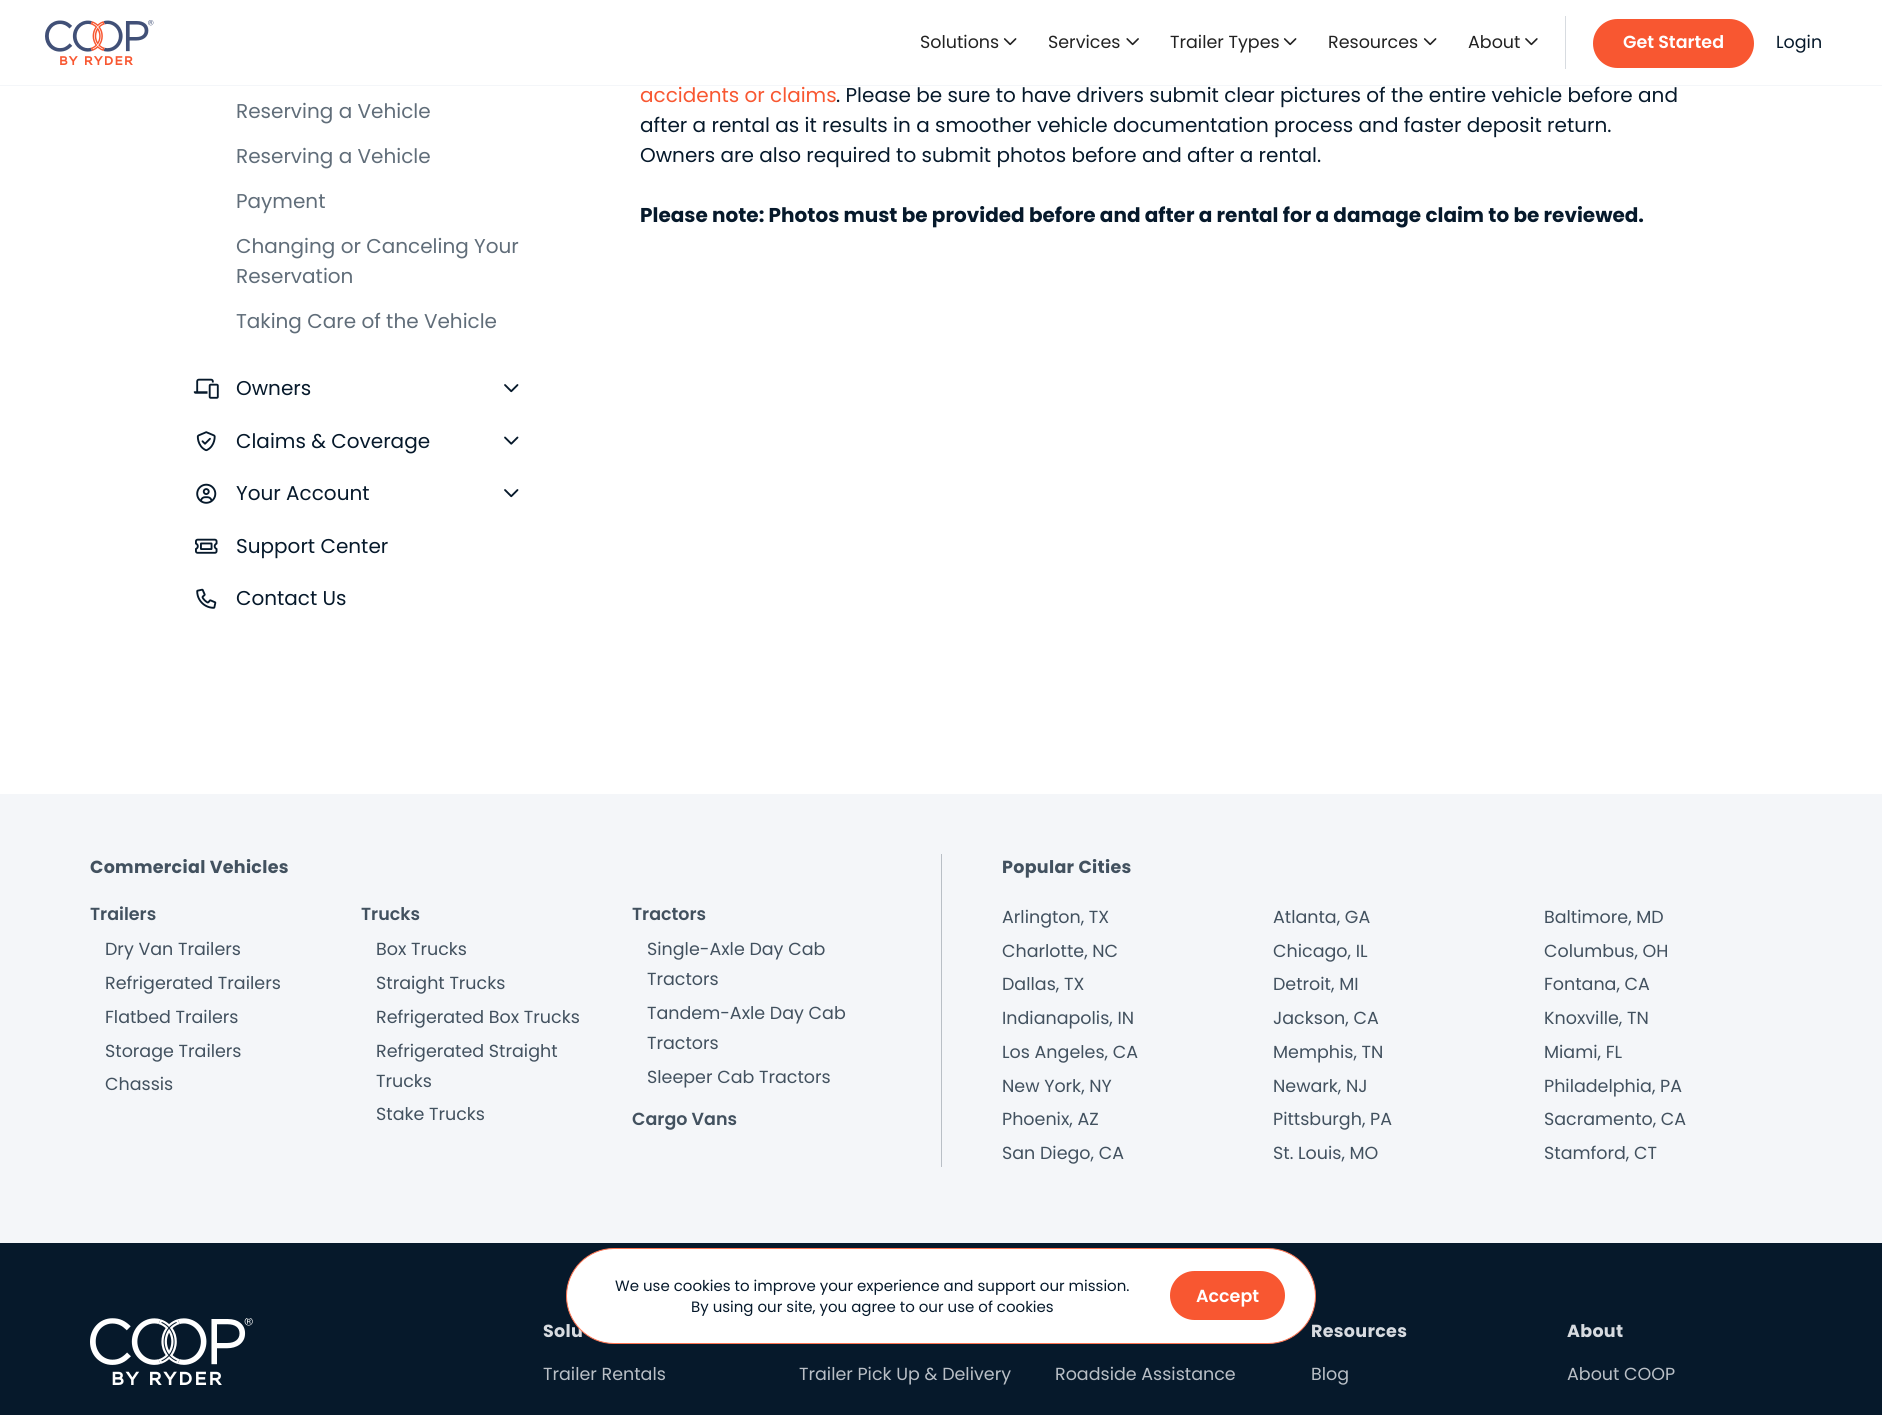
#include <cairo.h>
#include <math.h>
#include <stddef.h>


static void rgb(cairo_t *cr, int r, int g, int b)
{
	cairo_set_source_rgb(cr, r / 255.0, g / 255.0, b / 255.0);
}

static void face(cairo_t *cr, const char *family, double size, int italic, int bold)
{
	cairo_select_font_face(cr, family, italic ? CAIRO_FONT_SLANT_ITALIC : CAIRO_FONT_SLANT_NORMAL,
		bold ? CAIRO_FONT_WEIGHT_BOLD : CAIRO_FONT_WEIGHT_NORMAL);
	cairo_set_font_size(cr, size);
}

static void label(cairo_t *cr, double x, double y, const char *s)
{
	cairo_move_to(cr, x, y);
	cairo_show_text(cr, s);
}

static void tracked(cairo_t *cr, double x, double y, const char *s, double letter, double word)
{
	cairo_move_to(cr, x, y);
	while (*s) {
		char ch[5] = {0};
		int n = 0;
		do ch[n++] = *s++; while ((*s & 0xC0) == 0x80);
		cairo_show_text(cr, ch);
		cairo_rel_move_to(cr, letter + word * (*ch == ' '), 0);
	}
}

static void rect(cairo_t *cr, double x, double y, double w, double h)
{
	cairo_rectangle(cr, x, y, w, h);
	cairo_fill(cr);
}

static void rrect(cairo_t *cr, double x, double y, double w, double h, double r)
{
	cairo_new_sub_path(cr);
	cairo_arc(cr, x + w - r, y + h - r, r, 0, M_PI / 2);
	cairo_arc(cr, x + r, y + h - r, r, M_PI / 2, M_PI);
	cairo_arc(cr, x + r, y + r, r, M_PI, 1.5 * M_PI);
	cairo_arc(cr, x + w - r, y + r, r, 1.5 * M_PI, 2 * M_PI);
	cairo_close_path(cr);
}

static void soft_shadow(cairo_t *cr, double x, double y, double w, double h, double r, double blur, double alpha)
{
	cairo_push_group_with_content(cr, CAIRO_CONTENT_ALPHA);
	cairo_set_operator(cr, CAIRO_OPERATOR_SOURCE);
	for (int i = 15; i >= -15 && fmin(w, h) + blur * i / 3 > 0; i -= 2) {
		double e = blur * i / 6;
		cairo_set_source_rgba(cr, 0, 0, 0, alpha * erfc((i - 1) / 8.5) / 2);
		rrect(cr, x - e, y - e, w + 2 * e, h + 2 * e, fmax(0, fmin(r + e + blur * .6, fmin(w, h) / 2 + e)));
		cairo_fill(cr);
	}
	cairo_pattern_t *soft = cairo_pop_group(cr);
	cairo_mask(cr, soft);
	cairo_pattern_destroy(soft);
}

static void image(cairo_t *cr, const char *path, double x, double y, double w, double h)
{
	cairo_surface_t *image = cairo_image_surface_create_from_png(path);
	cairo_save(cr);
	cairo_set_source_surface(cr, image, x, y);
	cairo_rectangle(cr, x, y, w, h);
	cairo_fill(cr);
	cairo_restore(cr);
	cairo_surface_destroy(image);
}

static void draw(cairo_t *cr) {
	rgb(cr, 255, 255, 255);
	cairo_paint(cr);
	rgb(cr, 244, 246, 249);
	rect(cr, 0, 85, 1882, 1);
	image(cr, "image0.png", 45, 20, 109, 45);
	face(cr, "Poppins", 17.5, 0, 0);
	rgb(cr, 34, 34, 34);
	label(cr, 920, 48, "Solutions");
	image(cr, "image1.png", 1003, 38, 14, 8);
	label(cr, 1048, 48, "Services");
	image(cr, "image2.png", 1126, 38, 13, 8);
	label(cr, 1170, 48, "Trailer Types");
	image(cr, "image1.png", 1283, 38, 14, 8);
	label(cr, 1328, 48, "Resources");
	image(cr, "image1.png", 1423, 38, 14, 8);
	label(cr, 1468, 48, "About");
	image(cr, "image3.png", 1525, 38, 13, 8);
	rgb(cr, 215, 219, 224);
	rect(cr, 1565, 16, 1, 53);
	rgb(cr, 248, 87, 49);
	rrect(cr, 1593, 19, 161, 49, 24.5);
	cairo_fill(cr);
	face(cr, "Poppins SemiBold", 17.5, 0, 0);
	rgb(cr, 255, 255, 255);
	label(cr, 1623, 48, "Get Started");
	face(cr, "Poppins", 17.5, 0, 0);
	rgb(cr, 6, 25, 43);
	label(cr, 1776, 48, "Login");
	face(cr, "Poppins", 20, 0, 0);
	rgb(cr, 96, 109, 121);
	label(cr, 236, 118, "Reserving a Vehicle");
	label(cr, 236, 163, "Reserving a Vehicle");
	label(cr, 236, 208, "Payment");
	label(cr, 236, 253, "Changing or Canceling Your");
	label(cr, 236, 283, "Reservation");
	label(cr, 236, 328, "Taking Care of the Vehicle");
	image(cr, "image4.png", 193, 378, 26, 21);
	rgb(cr, 6, 25, 43);
	label(cr, 236, 395, "Owners");
	image(cr, "image5.png", 504, 384, 15, 9);
	image(cr, "image6.png", 196, 431, 20, 21);
	label(cr, 236, 448, "Claims & Coverage");
	image(cr, "image7.png", 504, 436, 15, 9);
	image(cr, "image8.png", 196, 483, 21, 21);
	label(cr, 236, 500, "Your Account");
	image(cr, "image5.png", 504, 489, 15, 9);
	image(cr, "image9.png", 195, 538, 23, 16);
	label(cr, 236, 553, "Support Center");
	image(cr, "image10.png", 196, 588, 21, 21);
	label(cr, 236, 605, "Contact Us");
	rgb(cr, 248, 87, 49);
	label(cr, 640, 102, "accidents or claims");
	rgb(cr, 6, 25, 43);
	label(cr, 836, 102, ". Please be sure to have drivers submit clear pictures of the entire vehicle before and");
	label(cr, 640, 132, "after a rental as it results in a smoother vehicle documentation process and faster deposit return.");
	label(cr, 640, 162, "Owners are also required to submit photos before and after a rental.");
	face(cr, "Poppins", 20, 0, 1);
	label(cr, 640, 222, "Please note: Photos must be provided before and after a rental for a damage claim to be reviewed.");
	rgb(cr, 244, 246, 249);
	rect(cr, 0, 794, 1882, 449);
	face(cr, "Poppins", 17.5, 0, 1);
	rgb(cr, 66, 81, 95);
	tracked(cr, 90, 873, "Commercial Vehicles", 0.3, 0);
	face(cr, "Poppins SemiBold", 17.5, 0, 0);
	label(cr, 90, 920, "Trailers");
	face(cr, "Poppins", 17.5, 0, 0);
	label(cr, 105, 955, "Dry Van Trailers");
	label(cr, 105, 989, "Refrigerated Trailers");
	label(cr, 105, 1023, "Flatbed Trailers");
	label(cr, 105, 1057, "Storage Trailers");
	label(cr, 105, 1090, "Chassis");
	face(cr, "Poppins SemiBold", 17.5, 0, 0);
	label(cr, 361, 920, "Trucks");
	face(cr, "Poppins", 17.5, 0, 0);
	label(cr, 376, 955, "Box Trucks");
	label(cr, 376, 989, "Straight Trucks");
	label(cr, 376, 1023, "Refrigerated Box Trucks");
	label(cr, 376, 1057, "Refrigerated Straight");
	label(cr, 376, 1087, "Trucks");
	label(cr, 376, 1120, "Stake Trucks");
	face(cr, "Poppins SemiBold", 17.5, 0, 0);
	label(cr, 632, 920, "Tractors");
	face(cr, "Poppins", 17.5, 0, 0);
	label(cr, 647, 955, "Single-Axle Day Cab");
	label(cr, 647, 985, "Tractors");
	label(cr, 647, 1019, "Tandem-Axle Day Cab");
	label(cr, 647, 1049, "Tractors");
	label(cr, 647, 1083, "Sleeper Cab Tractors");
	face(cr, "Poppins SemiBold", 17.5, 0, 0);
	label(cr, 632, 1125, "Cargo Vans");
	rgb(cr, 185, 191, 198);
	rect(cr, 941, 854, 1, 313);
	face(cr, "Poppins", 17.5, 0, 1);
	rgb(cr, 66, 81, 95);
	tracked(cr, 1002, 873, "Popular Cities", 0.3, 0);
	face(cr, "Poppins", 17.5, 0, 0);
	label(cr, 1002, 923, "Arlington, TX");
	label(cr, 1273, 923, "Atlanta, GA");
	label(cr, 1544, 923, "Baltimore, MD");
	label(cr, 1002, 957, "Charlotte, NC");
	label(cr, 1273, 957, "Chicago, IL");
	label(cr, 1544, 957, "Columbus, OH");
	label(cr, 1002, 990, "Dallas, TX");
	label(cr, 1273, 990, "Detroit, MI");
	label(cr, 1544, 990, "Fontana, CA");
	label(cr, 1002, 1024, "Indianapolis, IN");
	label(cr, 1273, 1024, "Jackson, CA");
	label(cr, 1544, 1024, "Knoxville, TN");
	label(cr, 1002, 1058, "Los Angeles, CA");
	label(cr, 1273, 1058, "Memphis, TN");
	label(cr, 1544, 1058, "Miami, FL");
	label(cr, 1002, 1092, "New York, NY");
	label(cr, 1273, 1092, "Newark, NJ");
	label(cr, 1544, 1092, "Philadelphia, PA");
	label(cr, 1002, 1125, "Phoenix, AZ");
	label(cr, 1273, 1125, "Pittsburgh, PA");
	label(cr, 1544, 1125, "Sacramento, CA");
	label(cr, 1002, 1159, "San Diego, CA");
	label(cr, 1273, 1159, "St. Louis, MO");
	label(cr, 1544, 1159, "Stamford, CT");
	rgb(cr, 6, 25, 43);
	rect(cr, 0, 1243, 1882, 172);
	rgb(cr, 6, 25, 43);
	soft_shadow(cr, 566, 1255, 750, 96, 48, 2.5, 0.1);
	soft_shadow(cr, 566, 1253, 750, 96, 48, 1, 0.1);
	face(cr, "Poppins", 17.5, 0, 1);
	rgb(cr, 215, 219, 224);
	tracked(cr, 543, 1337, "Solu", 0.3, 0);
	tracked(cr, 1311, 1337, "Resources", 0.3, 0);
	rgb(cr, 255, 255, 255);
	rrect(cr, 566.5, 1248.5, 749, 95, 47.5);
	cairo_fill_preserve(cr);
	rgb(cr, 255, 116, 81);
	cairo_set_line_width(cr, 1);
	cairo_stroke(cr);
	face(cr, "Poppins", 15, 0, 0);
	rgb(cr, 6, 25, 43);
	label(cr, 615, 1291, "We use cookies to improve your experience and support our mission.");
	label(cr, 691, 1312, "By using our site, you agree to our use of cookies");
	rgb(cr, 248, 87, 49);
	rrect(cr, 1170, 1271, 115, 49, 24.5);
	cairo_fill(cr);
	face(cr, "Poppins SemiBold", 17.5, 0, 0);
	rgb(cr, 255, 255, 255);
	label(cr, 1196, 1302, "Accept");
	image(cr, "image11.png", 90, 1318, 163, 67);
	face(cr, "Poppins", 17.5, 0, 0);
	rgb(cr, 185, 191, 198);
	label(cr, 543, 1380, "Trailer Rentals");
	label(cr, 799, 1380, "Trailer Pick Up & Delivery");
	label(cr, 1055, 1380, "Roadside Assistance");
	label(cr, 1311, 1380, "Blog");
	face(cr, "Poppins", 17.5, 0, 1);
	rgb(cr, 215, 219, 224);
	tracked(cr, 1567, 1337, "About", 0.3, 0);
	face(cr, "Poppins", 17.5, 0, 0);
	rgb(cr, 185, 191, 198);
	label(cr, 1567, 1380, "About COOP");
}

int main(void) {
	cairo_surface_t *surface = cairo_image_surface_create(CAIRO_FORMAT_RGB24, 1882, 1415);
	cairo_t *cr = cairo_create(surface);
	cairo_font_options_t *options = cairo_font_options_create();
	cairo_font_options_set_hint_metrics(options, CAIRO_HINT_METRICS_OFF);
	cairo_font_options_set_hint_style(options, CAIRO_HINT_STYLE_NONE);
	cairo_set_font_options(cr, options);
	cairo_set_miter_limit(cr, 4);
	draw(cr);
	cairo_surface_write_to_png(surface, "render.png");
	cairo_font_options_destroy(options);
	cairo_destroy(cr);
	cairo_surface_destroy(surface);
	return 0;
}
